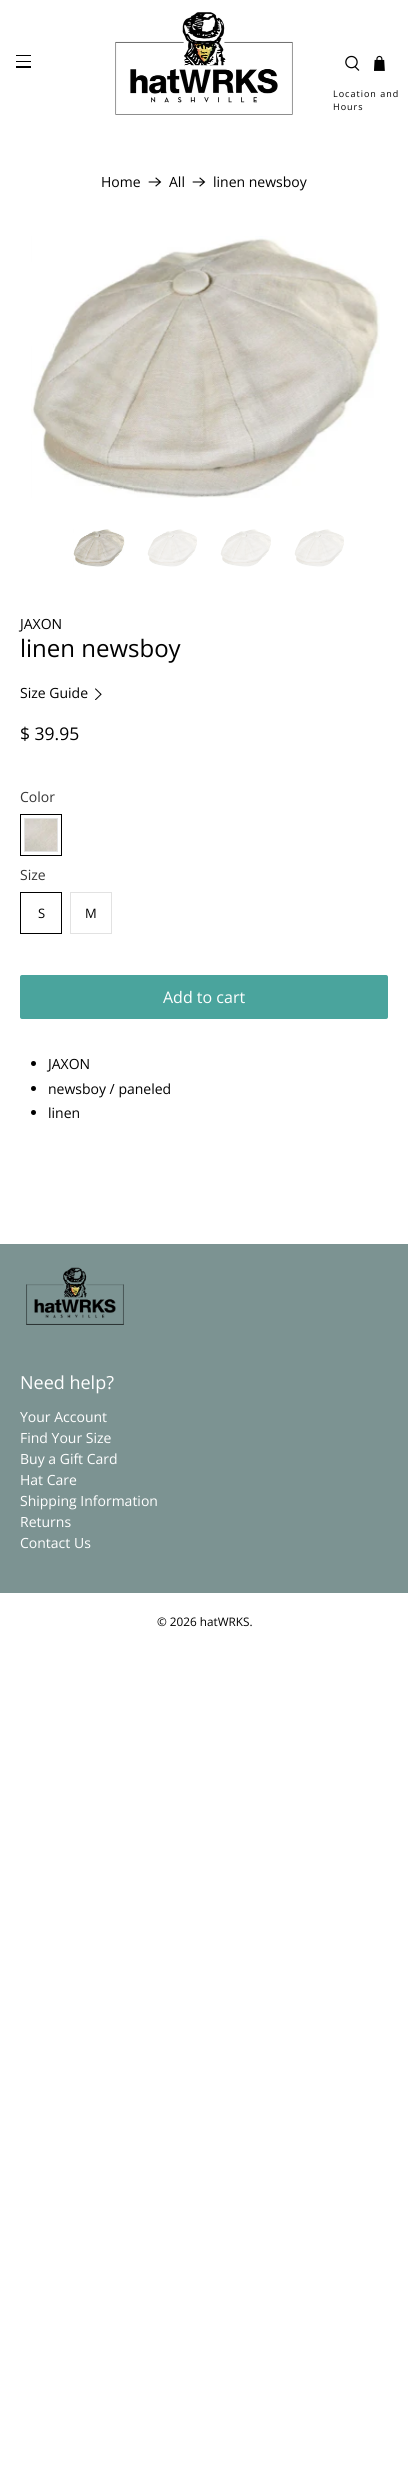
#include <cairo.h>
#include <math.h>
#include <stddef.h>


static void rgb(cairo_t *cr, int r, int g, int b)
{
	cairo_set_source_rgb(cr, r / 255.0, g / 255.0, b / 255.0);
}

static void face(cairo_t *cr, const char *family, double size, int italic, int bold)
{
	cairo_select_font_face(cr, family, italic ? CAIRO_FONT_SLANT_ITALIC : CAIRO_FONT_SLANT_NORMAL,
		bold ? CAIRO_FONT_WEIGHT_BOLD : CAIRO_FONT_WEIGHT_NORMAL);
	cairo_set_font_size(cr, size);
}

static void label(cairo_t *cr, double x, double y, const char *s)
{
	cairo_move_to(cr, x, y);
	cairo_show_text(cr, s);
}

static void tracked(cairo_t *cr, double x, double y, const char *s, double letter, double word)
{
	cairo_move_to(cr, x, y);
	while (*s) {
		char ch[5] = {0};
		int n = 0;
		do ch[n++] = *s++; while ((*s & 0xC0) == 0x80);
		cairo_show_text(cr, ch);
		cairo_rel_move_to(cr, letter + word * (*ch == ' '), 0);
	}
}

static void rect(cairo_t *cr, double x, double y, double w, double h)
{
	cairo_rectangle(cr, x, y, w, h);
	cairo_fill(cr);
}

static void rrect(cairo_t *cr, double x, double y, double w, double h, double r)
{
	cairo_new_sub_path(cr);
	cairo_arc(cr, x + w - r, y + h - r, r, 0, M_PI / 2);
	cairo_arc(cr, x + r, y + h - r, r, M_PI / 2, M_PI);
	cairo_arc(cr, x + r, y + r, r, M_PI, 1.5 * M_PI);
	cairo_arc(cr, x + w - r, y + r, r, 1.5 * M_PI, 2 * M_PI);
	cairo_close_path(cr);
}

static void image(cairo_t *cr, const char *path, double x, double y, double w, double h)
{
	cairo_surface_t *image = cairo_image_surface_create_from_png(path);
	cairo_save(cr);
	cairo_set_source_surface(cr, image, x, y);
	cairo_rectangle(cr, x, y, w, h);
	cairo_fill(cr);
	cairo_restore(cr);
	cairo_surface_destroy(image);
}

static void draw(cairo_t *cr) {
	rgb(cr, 255, 255, 255);
	cairo_paint(cr);
	rgb(cr, 0, 0, 0);
	rect(cr, 16, 55, 15, 1);
	rect(cr, 16, 61, 15, 1);
	rect(cr, 16, 66, 15, 2);
	image(cr, "image0.png", 115, 12, 178, 103);
	image(cr, "image1.png", 345, 55, 15, 16);
	image(cr, "image2.png", 374, 55, 11, 16);
	face(cr, "Open Sans", 9, 0, 0);
	tracked(cr, 333, 97, "Location and", 1, 0);
	tracked(cr, 333, 110, "Hours", 1, 0);
	face(cr, "Open Sans", 14, 0, 0);
	label(cr, 101, 187, "Home");
	image(cr, "image3.png", 148, 177, 14, 10);
	label(cr, 169, 187, "All");
	image(cr, "image3.png", 192, 177, 14, 10);
	label(cr, 213, 187, "linen newsboy");
	image(cr, "image4.png", 31, 236, 349, 262);
	image(cr, "image5.png", 73, 529, 52, 38);
	image(cr, "image6.png", 147, 529, 50, 38);
	image(cr, "image7.png", 220, 529, 51, 38);
	image(cr, "image6.png", 294, 529, 50, 38);
	label(cr, 20, 629, "JAXON");
	face(cr, "Open Sans", 24, 0, 0);
	label(cr, 20, 657, "linen newsboy");
	face(cr, "Open Sans", 14, 0, 0);
	label(cr, 20, 698, "Size Guide");
	image(cr, "image8.png", 95, 688, 7, 12);
	face(cr, "Open Sans", 17.5, 0, 0);
	label(cr, 20, 740, "$ 39.95");
	face(cr, "Open Sans", 14, 0, 0);
	rgb(cr, 54, 54, 54);
	label(cr, 20, 802, "Color");
	cairo_rectangle(cr, 20.5, 814.5, 41, 41);
	rgb(cr, 0, 0, 0);
	cairo_set_line_width(cr, 1);
	cairo_stroke(cr);
	cairo_rectangle(cr, 24.5, 818.5, 33, 33);
	rgb(cr, 226, 226, 226);
	cairo_stroke(cr);
	image(cr, "image9.png", 25, 819, 32, 32);
	rgb(cr, 54, 54, 54);
	label(cr, 20, 880, "Size");
	cairo_rectangle(cr, 20.5, 892.5, 41, 41);
	rgb(cr, 0, 0, 0);
	cairo_stroke(cr);
	face(cr, "Open Sans", 13, 0, 0);
	label(cr, 38, 918, "S");
	cairo_rectangle(cr, 70.5, 892.5, 41, 41);
	rgb(cr, 226, 226, 226);
	cairo_stroke(cr);
	rgb(cr, 0, 0, 0);
	label(cr, 85, 918, "M");
	rgb(cr, 74, 164, 157);
	rrect(cr, 20, 975, 368, 44, 2);
	cairo_fill(cr);
	face(cr, "Open Sans", 16, 0, 0);
	rgb(cr, 255, 255, 255);
	label(cr, 163, 1003, "Add to cart");
	rgb(cr, 0, 0, 0);
	cairo_new_path(cr);
	cairo_arc(cr, 33.5, 1063.5, 2.5, 0, 2 * M_PI);
	cairo_fill(cr);
	face(cr, "Open Sans", 14, 0, 0);
	label(cr, 48, 1069, "JAXON");
	cairo_new_path(cr);
	cairo_arc(cr, 33.5, 1088.5, 2.5, 0, 2 * M_PI);
	cairo_fill(cr);
	label(cr, 48, 1094, "newsboy / paneled");
	cairo_new_path(cr);
	cairo_arc(cr, 33.5, 1112.5, 2.5, 0, 2 * M_PI);
	cairo_fill(cr);
	label(cr, 48, 1118, "linen");
	rgb(cr, 124, 147, 146);
	rect(cr, 0, 1244, 408, 349);
	image(cr, "image10.png", 26, 1267, 98, 58);
	face(cr, "Open Sans", 18, 0, 0);
	rgb(cr, 255, 255, 255);
	label(cr, 20, 1389, "Need help?");
	face(cr, "Open Sans", 14, 0, 0);
	label(cr, 20, 1422, "Your Account");
	label(cr, 20, 1443, "Find Your Size");
	label(cr, 20, 1464, "Buy a Gift Card");
	label(cr, 20, 1485, "Hat Care");
	label(cr, 20, 1506, "Shipping Information");
	label(cr, 20, 1527, "Returns");
	label(cr, 20, 1548, "Contact Us");
	face(cr, "Open Sans", 11.75, 0, 0);
	rgb(cr, 0, 0, 0);
	label(cr, 157, 1626, "© 2026 hatWRKS.");
}

int main(void) {
	cairo_surface_t *surface = cairo_image_surface_create(CAIRO_FORMAT_RGB24, 408, 2473);
	cairo_t *cr = cairo_create(surface);
	cairo_font_options_t *options = cairo_font_options_create();
	cairo_font_options_set_hint_metrics(options, CAIRO_HINT_METRICS_OFF);
	cairo_font_options_set_hint_style(options, CAIRO_HINT_STYLE_NONE);
	cairo_set_font_options(cr, options);
	cairo_set_miter_limit(cr, 4);
	draw(cr);
	cairo_surface_write_to_png(surface, "render.png");
	cairo_font_options_destroy(options);
	cairo_destroy(cr);
	cairo_surface_destroy(surface);
	return 0;
}
